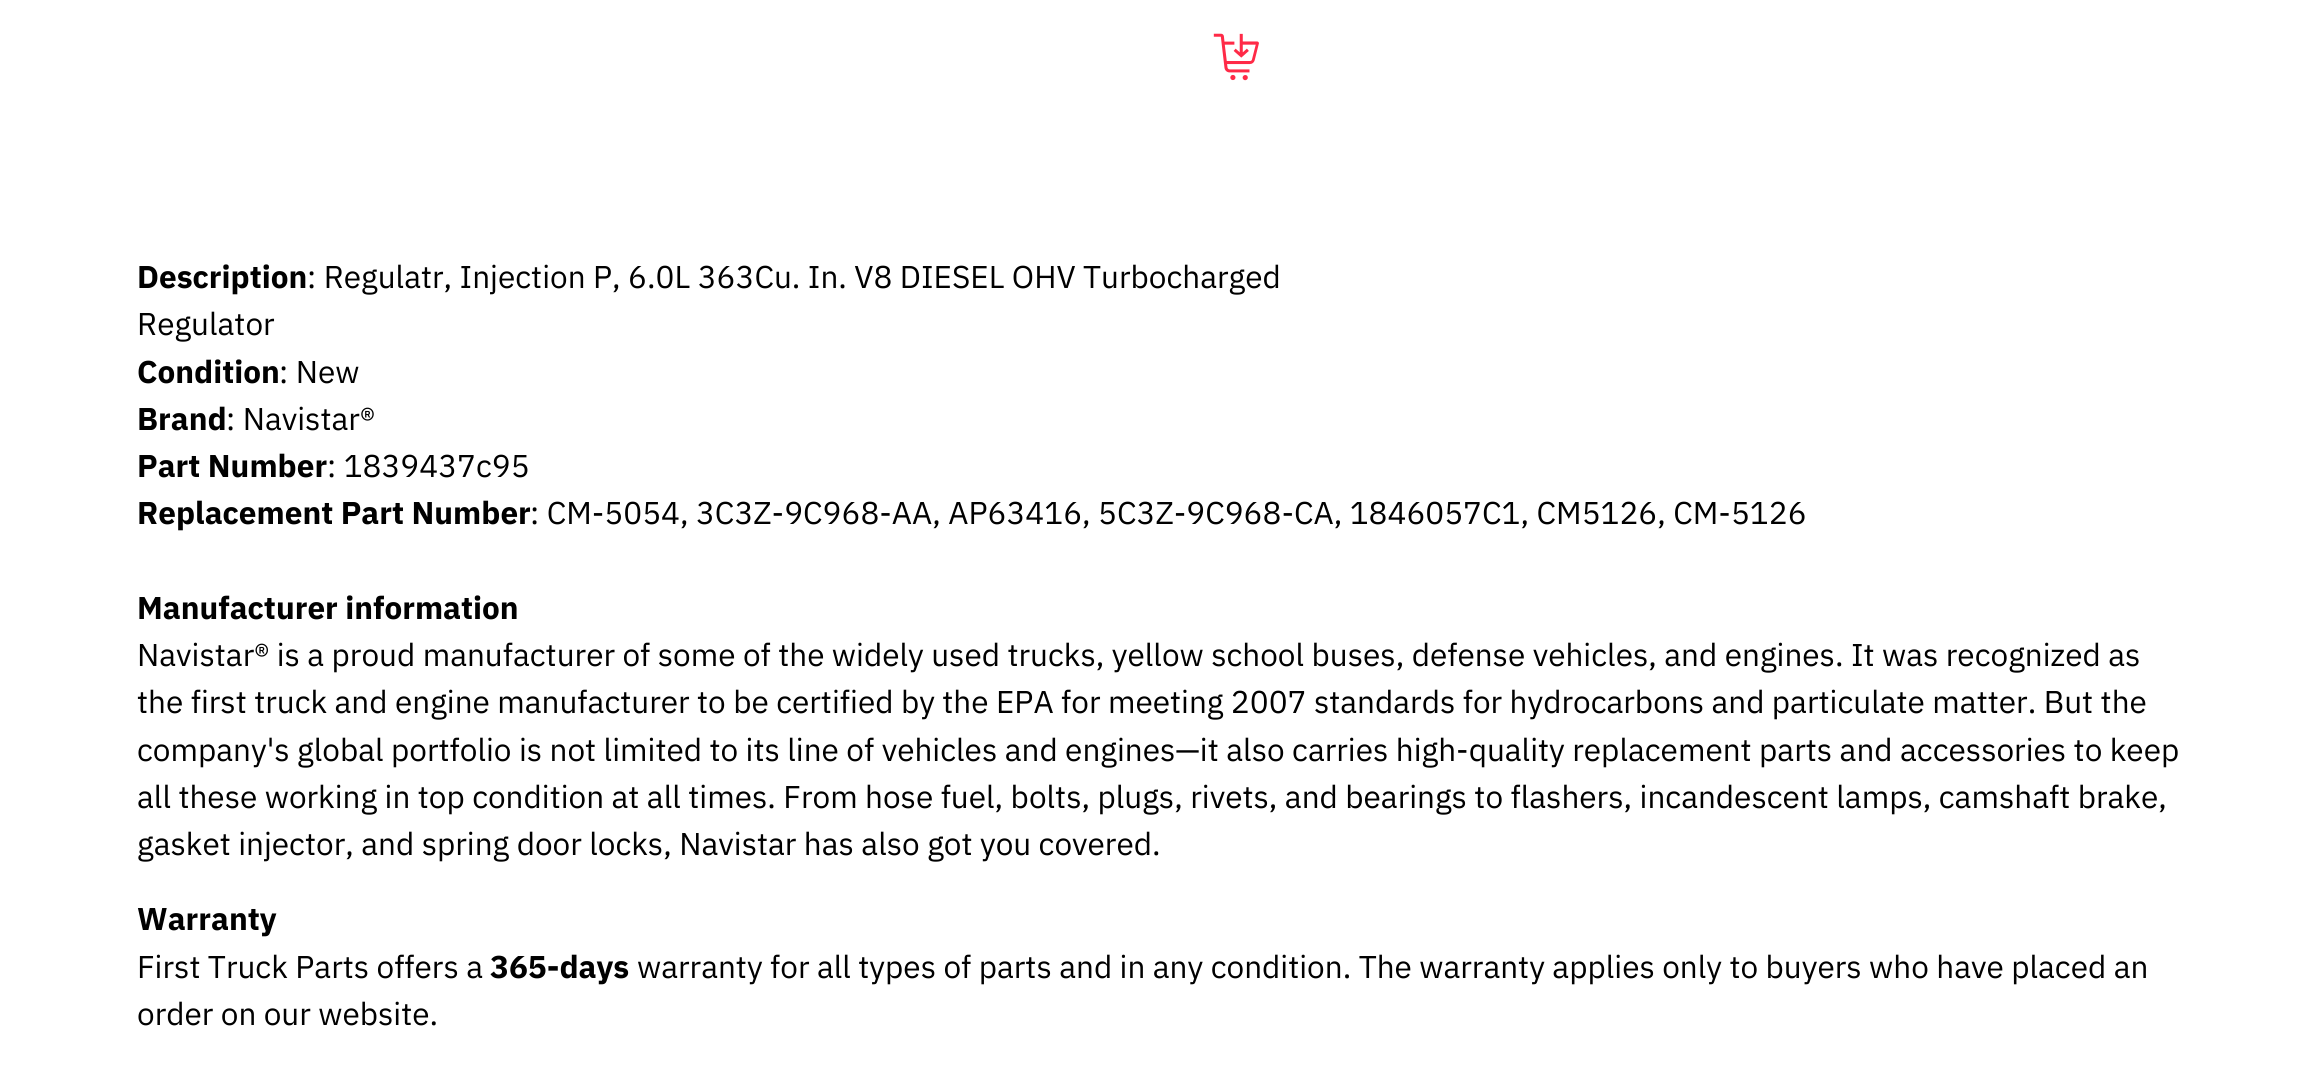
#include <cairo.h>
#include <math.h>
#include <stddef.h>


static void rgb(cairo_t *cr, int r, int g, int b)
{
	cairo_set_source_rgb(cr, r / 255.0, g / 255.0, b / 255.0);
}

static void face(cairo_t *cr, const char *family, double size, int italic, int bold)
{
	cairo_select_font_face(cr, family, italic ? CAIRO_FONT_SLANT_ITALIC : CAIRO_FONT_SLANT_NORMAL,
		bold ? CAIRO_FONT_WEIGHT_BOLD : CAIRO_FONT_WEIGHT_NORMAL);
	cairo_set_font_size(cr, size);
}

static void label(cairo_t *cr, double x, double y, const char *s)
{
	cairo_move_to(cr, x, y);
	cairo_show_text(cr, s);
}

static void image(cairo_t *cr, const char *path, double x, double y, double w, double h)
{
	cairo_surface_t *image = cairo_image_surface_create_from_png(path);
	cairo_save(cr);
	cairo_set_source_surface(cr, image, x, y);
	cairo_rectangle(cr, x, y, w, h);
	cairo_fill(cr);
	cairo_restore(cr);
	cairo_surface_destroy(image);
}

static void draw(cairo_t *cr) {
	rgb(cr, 255, 255, 255);
	cairo_paint(cr);
	image(cr, "image0.png", 1213, 33, 46, 48);
	face(cr, "IBM Plex Sans", 31.5, 0, 1);
	rgb(cr, 0, 0, 0);
	label(cr, 137, 288, "Description");
	face(cr, "IBM Plex Sans", 31.5, 0, 0);
	label(cr, 307, 288, ": Regulatr, Injection P, 6.0L 363Cu. In. V8 DIESEL OHV Turbocharged");
	label(cr, 137, 335, "Regulator");
	face(cr, "IBM Plex Sans", 31.5, 0, 1);
	label(cr, 137, 383, "Condition");
	face(cr, "IBM Plex Sans", 31.5, 0, 0);
	label(cr, 279, 383, ": New");
	face(cr, "IBM Plex Sans", 31.5, 0, 1);
	label(cr, 137, 430, "Brand");
	face(cr, "IBM Plex Sans", 31.5, 0, 0);
	label(cr, 226, 430, ": Navistar®");
	face(cr, "IBM Plex Sans", 31.5, 0, 1);
	label(cr, 137, 477, "Part Number");
	face(cr, "IBM Plex Sans", 31.5, 0, 0);
	label(cr, 327, 477, ": 1839437c95");
	face(cr, "IBM Plex Sans", 31.5, 0, 1);
	label(cr, 137, 524, "Replacement Part Number");
	face(cr, "IBM Plex Sans", 31.5, 0, 0);
	label(cr, 530, 524, ": CM-5054, 3C3Z-9C968-AA, AP63416, 5C3Z-9C968-CA, 1846057C1, CM5126, CM-5126");
	face(cr, "IBM Plex Sans", 31.5, 0, 1);
	label(cr, 137, 619, "Manufacturer information");
	face(cr, "IBM Plex Sans", 31.5, 0, 0);
	label(cr, 137, 666, "Navistar® is a proud manufacturer of some of the widely used trucks, yellow school buses, defense vehicles, and engines. It was recognized as");
	label(cr, 137, 713, "the first truck and engine manufacturer to be certified by the EPA for meeting 2007 standards for hydrocarbons and particulate matter. But the");
	label(cr, 137, 761, "company's global portfolio is not limited to its line of vehicles and engines—it also carries high-quality replacement parts and accessories to keep");
	label(cr, 137, 808, "all these working in top condition at all times. From hose fuel, bolts, plugs, rivets, and bearings to flashers, incandescent lamps, camshaft brake,");
	label(cr, 137, 855, "gasket injector, and spring door locks, Navistar has also got you covered.");
	face(cr, "IBM Plex Sans", 31.5, 0, 1);
	label(cr, 137, 930, "Warranty");
	face(cr, "IBM Plex Sans", 31.5, 0, 0);
	label(cr, 137, 978, "First Truck Parts offers a");
	face(cr, "IBM Plex Sans", 31.5, 0, 1);
	label(cr, 490, 978, "365-days");
	face(cr, "IBM Plex Sans", 31.5, 0, 0);
	label(cr, 637, 978, "warranty for all types of parts and in any condition. The warranty applies only to buyers who have placed an");
	label(cr, 137, 1025, "order on our website.");
}

int main(void) {
	cairo_surface_t *surface = cairo_image_surface_create(CAIRO_FORMAT_RGB24, 2320, 1081);
	cairo_t *cr = cairo_create(surface);
	cairo_font_options_t *options = cairo_font_options_create();
	cairo_font_options_set_hint_metrics(options, CAIRO_HINT_METRICS_OFF);
	cairo_font_options_set_hint_style(options, CAIRO_HINT_STYLE_NONE);
	cairo_set_font_options(cr, options);
	cairo_set_miter_limit(cr, 4);
	draw(cr);
	cairo_surface_write_to_png(surface, "render.png");
	cairo_font_options_destroy(options);
	cairo_destroy(cr);
	cairo_surface_destroy(surface);
	return 0;
}
